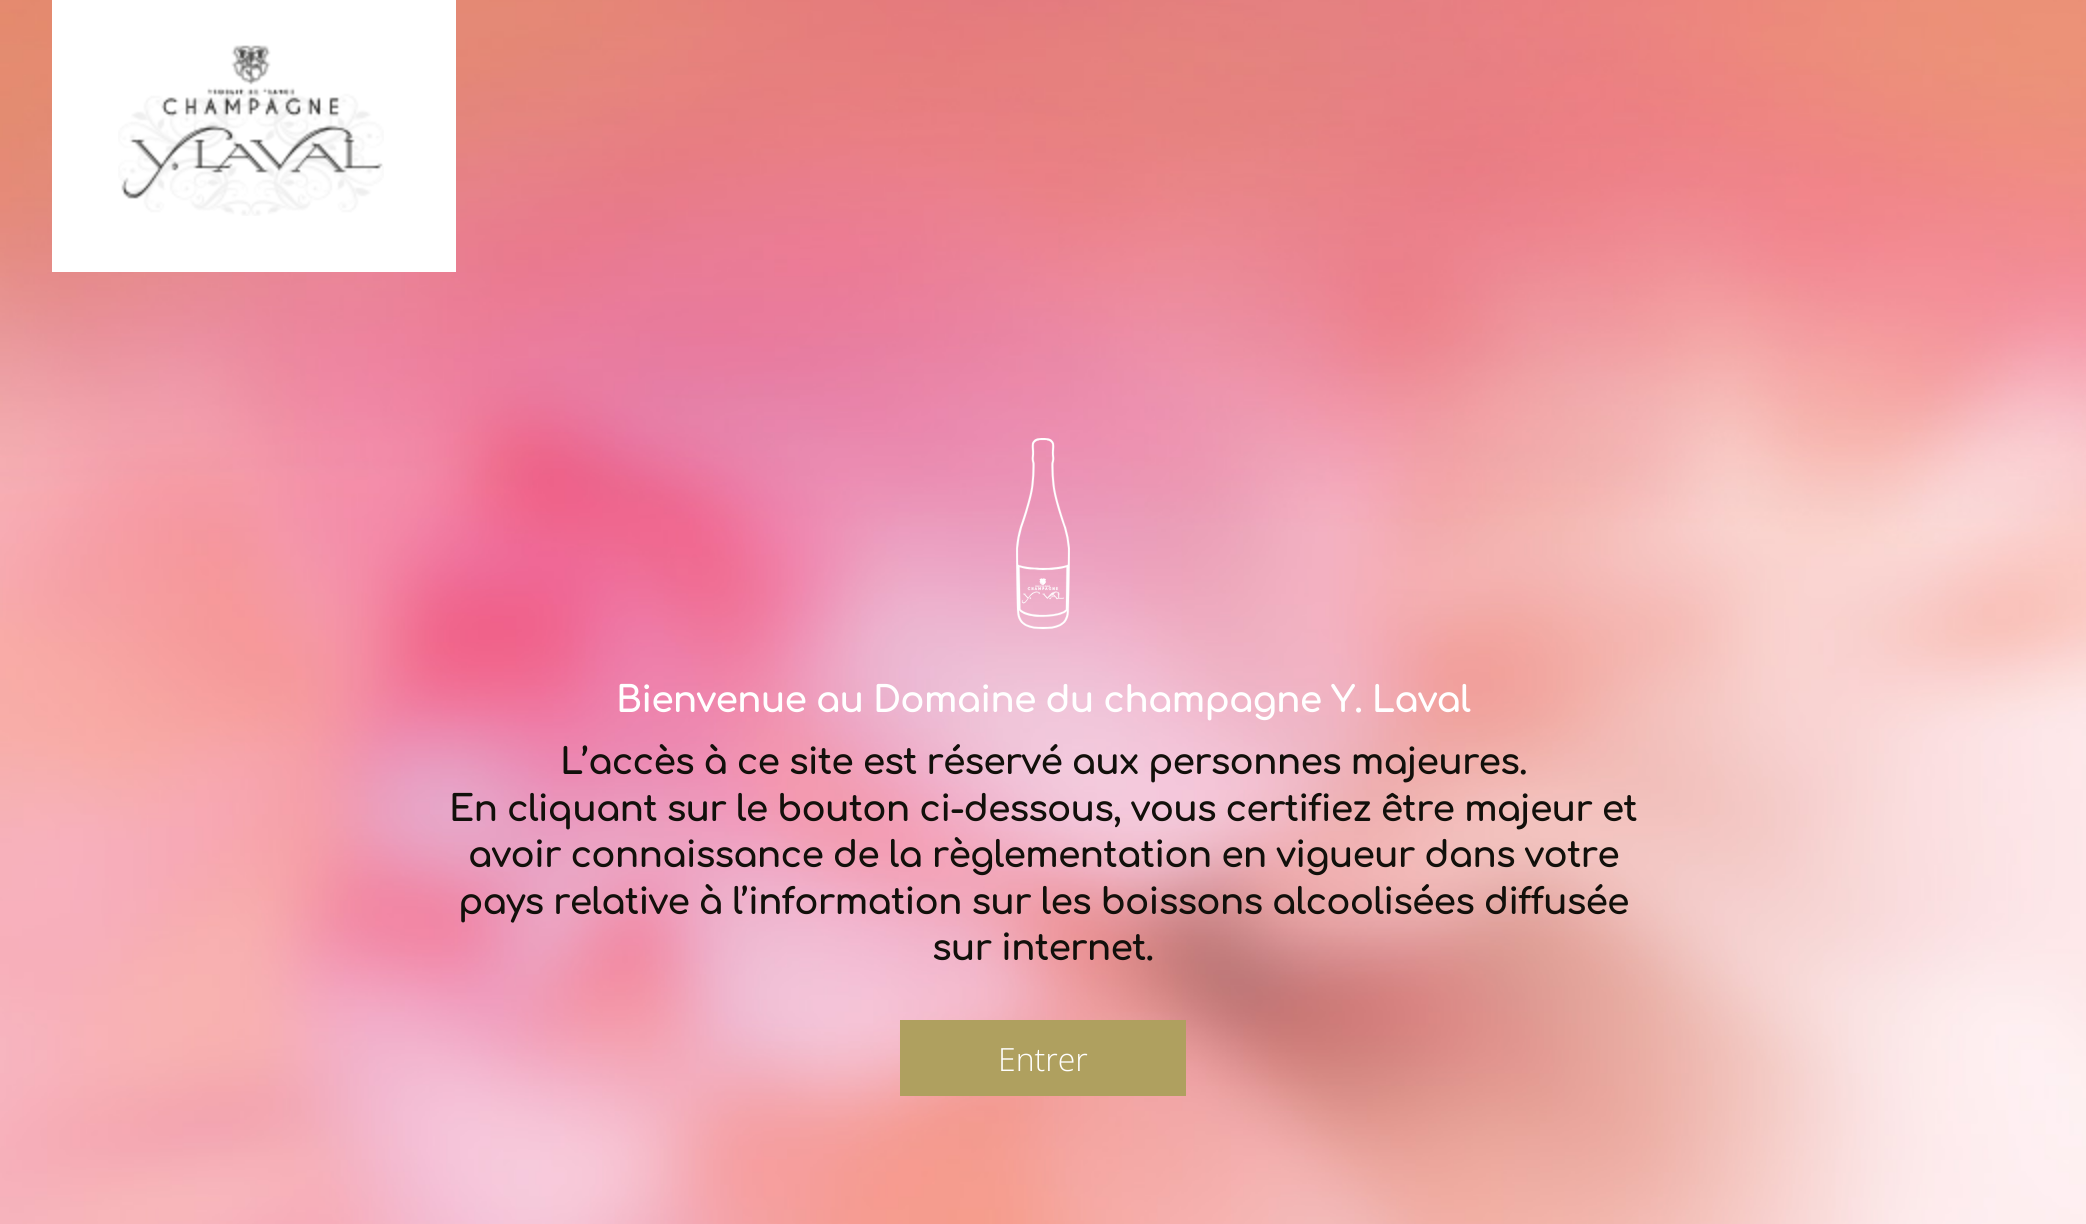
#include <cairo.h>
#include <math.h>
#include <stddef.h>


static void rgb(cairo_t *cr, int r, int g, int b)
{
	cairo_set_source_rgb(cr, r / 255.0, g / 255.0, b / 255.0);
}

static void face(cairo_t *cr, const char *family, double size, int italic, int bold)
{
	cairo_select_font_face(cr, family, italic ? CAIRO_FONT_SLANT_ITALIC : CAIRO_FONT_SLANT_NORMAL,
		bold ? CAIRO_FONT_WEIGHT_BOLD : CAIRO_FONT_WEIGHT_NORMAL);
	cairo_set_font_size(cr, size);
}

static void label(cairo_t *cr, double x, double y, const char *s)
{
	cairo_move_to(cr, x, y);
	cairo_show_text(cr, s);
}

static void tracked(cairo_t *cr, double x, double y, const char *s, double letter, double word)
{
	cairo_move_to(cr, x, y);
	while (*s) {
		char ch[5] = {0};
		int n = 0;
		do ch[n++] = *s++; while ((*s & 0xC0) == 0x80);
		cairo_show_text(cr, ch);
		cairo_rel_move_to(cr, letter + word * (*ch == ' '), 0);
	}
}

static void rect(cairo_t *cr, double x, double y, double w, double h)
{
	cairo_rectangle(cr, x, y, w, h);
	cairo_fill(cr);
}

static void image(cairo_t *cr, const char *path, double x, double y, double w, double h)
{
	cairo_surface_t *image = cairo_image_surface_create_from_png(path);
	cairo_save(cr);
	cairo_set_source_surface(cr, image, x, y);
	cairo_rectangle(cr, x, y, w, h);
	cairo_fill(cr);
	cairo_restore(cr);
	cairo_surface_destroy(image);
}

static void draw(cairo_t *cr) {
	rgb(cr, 255, 255, 255);
	cairo_paint(cr);
	image(cr, "image0.png", 0, 0, 2086, 1224);
	rgb(cr, 255, 255, 255);
	rect(cr, 52, 0, 404, 272);
	image(cr, "image1.png", 118, 45, 266, 171);
	image(cr, "image2.png", 1016, 438, 54, 192);
	face(cr, "Comfortaa", 36, 0, 1);
	tracked(cr, 616, 712, "Bienvenue au Domaine du champagne Y. Laval", -0.8, 0);
	rgb(cr, 18, 16, 11);
	tracked(cr, 560, 774, "L’accès à ce site est réservé aux personnes majeures.", -0.8, 0);
	tracked(cr, 449, 821, "En cliquant sur le bouton ci-dessous, vous certifiez être majeur et", -0.8, 0);
	tracked(cr, 468, 867, "avoir connaissance de la règlementation en vigueur dans votre", -0.8, 0);
	tracked(cr, 458, 914, "pays relative à l’information sur les boissons alcoolisées diffusée", -0.8, 0);
	tracked(cr, 932, 960, "sur internet.", -0.8, 0);
	rgb(cr, 175, 160, 95);
	rect(cr, 900, 1020, 286, 76);
	face(cr, "Open Sans Light", 32, 0, 0);
	rgb(cr, 255, 255, 255);
	label(cr, 998, 1071, "Entrer");
}

int main(void) {
	cairo_surface_t *surface = cairo_image_surface_create(CAIRO_FORMAT_RGB24, 2086, 1224);
	cairo_t *cr = cairo_create(surface);
	cairo_font_options_t *options = cairo_font_options_create();
	cairo_font_options_set_hint_metrics(options, CAIRO_HINT_METRICS_OFF);
	cairo_font_options_set_hint_style(options, CAIRO_HINT_STYLE_NONE);
	cairo_set_font_options(cr, options);
	cairo_set_miter_limit(cr, 4);
	draw(cr);
	cairo_surface_write_to_png(surface, "render.png");
	cairo_font_options_destroy(options);
	cairo_destroy(cr);
	cairo_surface_destroy(surface);
	return 0;
}
